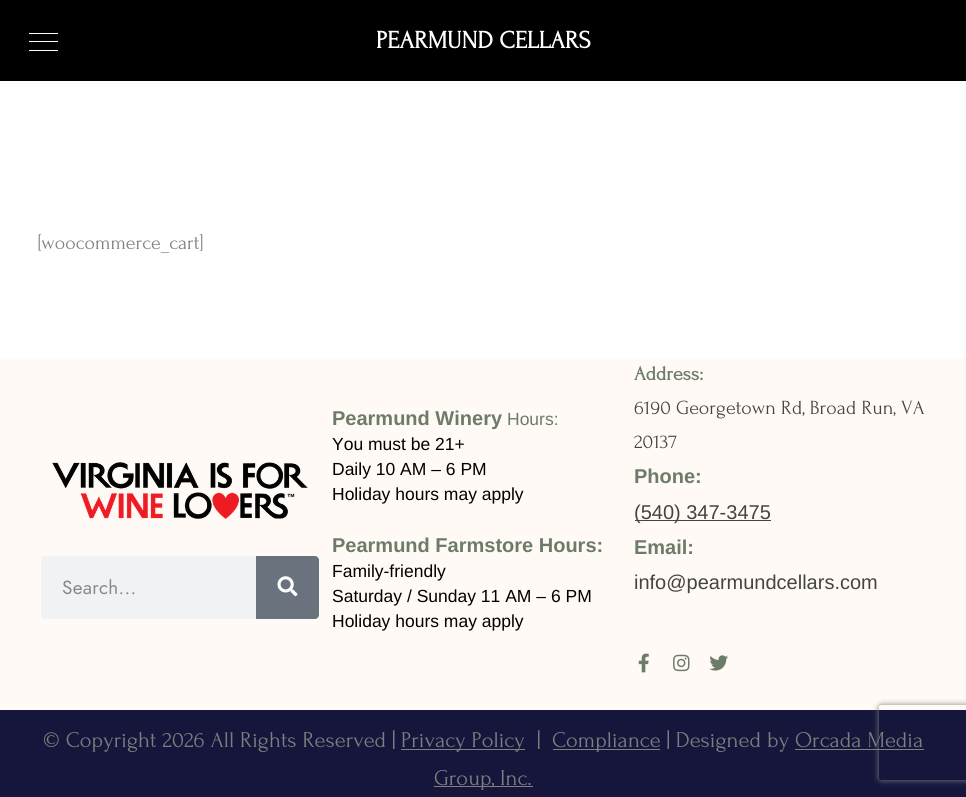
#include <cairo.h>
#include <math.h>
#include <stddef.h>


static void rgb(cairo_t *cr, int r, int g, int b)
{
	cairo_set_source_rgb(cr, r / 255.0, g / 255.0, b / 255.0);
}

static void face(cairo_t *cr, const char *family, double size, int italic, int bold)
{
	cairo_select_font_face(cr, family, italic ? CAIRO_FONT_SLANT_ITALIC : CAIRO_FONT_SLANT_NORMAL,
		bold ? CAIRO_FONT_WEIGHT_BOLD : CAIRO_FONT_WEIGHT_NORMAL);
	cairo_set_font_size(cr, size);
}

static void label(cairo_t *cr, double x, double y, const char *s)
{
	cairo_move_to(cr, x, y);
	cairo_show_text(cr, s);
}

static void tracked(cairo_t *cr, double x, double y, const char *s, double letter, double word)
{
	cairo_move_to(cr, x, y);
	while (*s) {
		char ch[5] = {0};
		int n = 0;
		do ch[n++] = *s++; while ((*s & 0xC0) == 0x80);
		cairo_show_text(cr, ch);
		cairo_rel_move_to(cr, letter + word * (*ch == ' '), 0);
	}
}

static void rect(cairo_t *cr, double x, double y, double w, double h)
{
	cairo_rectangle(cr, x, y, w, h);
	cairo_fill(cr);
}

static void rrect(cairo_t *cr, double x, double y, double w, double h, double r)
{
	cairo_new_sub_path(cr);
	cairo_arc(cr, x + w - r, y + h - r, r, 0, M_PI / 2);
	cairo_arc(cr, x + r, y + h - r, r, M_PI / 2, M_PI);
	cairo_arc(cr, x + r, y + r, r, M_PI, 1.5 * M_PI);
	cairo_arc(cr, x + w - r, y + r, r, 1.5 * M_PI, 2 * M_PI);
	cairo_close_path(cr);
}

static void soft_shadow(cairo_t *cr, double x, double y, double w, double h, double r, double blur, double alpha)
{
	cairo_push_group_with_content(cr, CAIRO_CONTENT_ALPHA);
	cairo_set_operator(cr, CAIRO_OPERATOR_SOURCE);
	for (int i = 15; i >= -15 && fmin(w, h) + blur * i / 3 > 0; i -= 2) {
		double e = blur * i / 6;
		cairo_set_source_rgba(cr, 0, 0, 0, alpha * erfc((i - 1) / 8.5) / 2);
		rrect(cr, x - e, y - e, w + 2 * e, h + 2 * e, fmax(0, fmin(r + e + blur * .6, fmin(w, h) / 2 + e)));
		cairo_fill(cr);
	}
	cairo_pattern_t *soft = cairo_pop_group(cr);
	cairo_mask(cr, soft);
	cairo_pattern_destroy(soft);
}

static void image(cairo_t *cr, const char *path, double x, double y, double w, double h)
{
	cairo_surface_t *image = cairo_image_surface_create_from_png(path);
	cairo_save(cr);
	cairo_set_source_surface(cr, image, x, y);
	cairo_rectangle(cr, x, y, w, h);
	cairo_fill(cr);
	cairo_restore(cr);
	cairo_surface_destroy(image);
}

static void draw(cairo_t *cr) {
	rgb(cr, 255, 255, 255);
	cairo_paint(cr);
	rgb(cr, 0, 0, 0);
	rect(cr, 0, 0, 966, 81);
	rgb(cr, 255, 255, 255);
	rect(cr, 29, 41, 29, 1);
	rect(cr, 29, 33, 29, 1);
	rect(cr, 29, 50, 29, 1);
	face(cr, "Forum", 25, 0, 1);
	label(cr, 376, 48, "PEARMUND CELLARS");
	face(cr, "Forum", 20, 0, 0);
	rgb(cr, 126, 126, 126);
	label(cr, 38, 249, "[woocommerce_cart]");
	rgb(cr, 255, 250, 245);
	rect(cr, 0, 358, 966, 352);
	image(cr, "image0.png", 52, 462, 256, 57);
	rgb(cr, 241, 242, 243);
	rrect(cr, 41, 556, 278, 63, 4);
	cairo_fill(cr);
	face(cr, "Jost", 19, 0, 0);
	rgb(cr, 134, 138, 142);
	tracked(cr, 62, 594, "Search...", 0.25, 0);
	rgb(cr, 105, 114, 125);
	cairo_new_path(cr);
	cairo_move_to(cr, 256, 556);
	cairo_line_to(cr, 315, 556);
	cairo_curve_to(cr, 317, 556, 319, 558, 319, 560);
	cairo_line_to(cr, 319, 615);
	cairo_curve_to(cr, 319, 617, 317, 619, 315, 619);
	cairo_line_to(cr, 256, 619);
	cairo_close_path(cr);
	cairo_fill(cr);
	image(cr, "image1.png", 277, 576, 21, 21);
	face(cr, "Liberation Sans", 20, 0, 1);
	rgb(cr, 108, 124, 105);
	label(cr, 332, 425, "Pearmund Winery");
	face(cr, "Liberation Sans", 17.5, 0, 0);
	label(cr, 507, 425, "Hours:");
	rgb(cr, 0, 0, 0);
	label(cr, 332, 450, "You must be 21+");
	label(cr, 332, 475, "Daily 10 AM – 6 PM");
	label(cr, 332, 500, "Holiday hours may apply");
	face(cr, "Liberation Sans", 20, 0, 1);
	rgb(cr, 108, 124, 105);
	label(cr, 332, 552, "Pearmund Farmstore Hours:");
	face(cr, "Liberation Sans", 17.5, 0, 0);
	rgb(cr, 0, 0, 0);
	label(cr, 332, 577, "Family-friendly");
	label(cr, 332, 602, "Saturday / Sunday 11 AM – 6 PM");
	label(cr, 332, 627, "Holiday hours may apply");
	face(cr, "Forum", 20, 0, 1);
	rgb(cr, 108, 124, 105);
	label(cr, 634, 380, "Address:");
	face(cr, "Forum", 20, 0, 0);
	rgb(cr, 68, 68, 68);
	label(cr, 634, 414, "6190 Georgetown Rd, Broad Run, VA");
	label(cr, 634, 448, "20137");
	face(cr, "Liberation Sans", 20, 0, 1);
	rgb(cr, 108, 124, 105);
	label(cr, 634, 483, "Phone:");
	rgb(cr, 68, 68, 68);
	rect(cr, 635, 520, 136, 1);
	face(cr, "Liberation Sans", 20, 0, 0);
	label(cr, 634, 519, "(540) 347-3475");
	face(cr, "Liberation Sans", 20, 0, 1);
	rgb(cr, 108, 124, 105);
	label(cr, 634, 554, "Email:");
	face(cr, "Liberation Sans", 20, 0, 0);
	rgb(cr, 68, 68, 68);
	label(cr, 634, 589, "info@pearmundcellars.com");
	image(cr, "image2.png", 638, 653, 11, 20);
	image(cr, "image3.png", 673, 654, 17, 18);
	image(cr, "image4.png", 709, 655, 19, 16);
	rgb(cr, 22, 22, 61);
	rect(cr, 0, 710, 966, 87);
	face(cr, "Forum", 22.5, 0, 0);
	rgb(cr, 126, 126, 126);
	label(cr, 43, 747, "© Copyright 2026 All Rights Reserved |");
	rgb(cr, 128, 128, 128);
	rect(cr, 401, 749, 124, 1);
	rgb(cr, 126, 126, 126);
	label(cr, 401, 747, "Privacy Policy");
	label(cr, 537, 747, "|");
	rgb(cr, 128, 128, 128);
	rect(cr, 553, 749, 107, 1);
	rgb(cr, 126, 126, 126);
	label(cr, 552, 747, "Compliance | Designed by Orcada Media");
	rgb(cr, 128, 128, 128);
	rect(cr, 795, 749, 129, 1);
	rect(cr, 434, 786, 99, 1);
	rgb(cr, 126, 126, 126);
	label(cr, 434, 785, "Group, Inc.");
	cairo_save(cr);
	cairo_set_fill_rule(cr, CAIRO_FILL_RULE_EVEN_ODD);
	cairo_new_path(cr);
	cairo_move_to(cr, 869, 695);
	cairo_line_to(cr, 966, 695);
	cairo_line_to(cr, 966, 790);
	cairo_line_to(cr, 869, 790);
	cairo_close_path(cr);
	cairo_move_to(cr, 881.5, 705);
	cairo_line_to(cr, 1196.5, 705);
	cairo_curve_to(cr, 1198, 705, 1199, 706, 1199, 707.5);
	cairo_line_to(cr, 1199, 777.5);
	cairo_curve_to(cr, 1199, 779, 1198, 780, 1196.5, 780);
	cairo_line_to(cr, 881.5, 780);
	cairo_curve_to(cr, 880, 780, 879, 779, 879, 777.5);
	cairo_line_to(cr, 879, 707.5);
	cairo_curve_to(cr, 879, 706, 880, 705, 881.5, 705);
	cairo_close_path(cr);
	cairo_clip(cr);
	rgb(cr, 128, 128, 128);
	soft_shadow(cr, 879, 705, 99, 75, 2.5, 3, 1);
	cairo_restore(cr);
}

int main(void) {
	cairo_surface_t *surface = cairo_image_surface_create(CAIRO_FORMAT_RGB24, 966, 797);
	cairo_t *cr = cairo_create(surface);
	cairo_font_options_t *options = cairo_font_options_create();
	cairo_font_options_set_hint_metrics(options, CAIRO_HINT_METRICS_OFF);
	cairo_font_options_set_hint_style(options, CAIRO_HINT_STYLE_NONE);
	cairo_set_font_options(cr, options);
	cairo_set_miter_limit(cr, 4);
	draw(cr);
	cairo_surface_write_to_png(surface, "render.png");
	cairo_font_options_destroy(options);
	cairo_destroy(cr);
	cairo_surface_destroy(surface);
	return 0;
}
